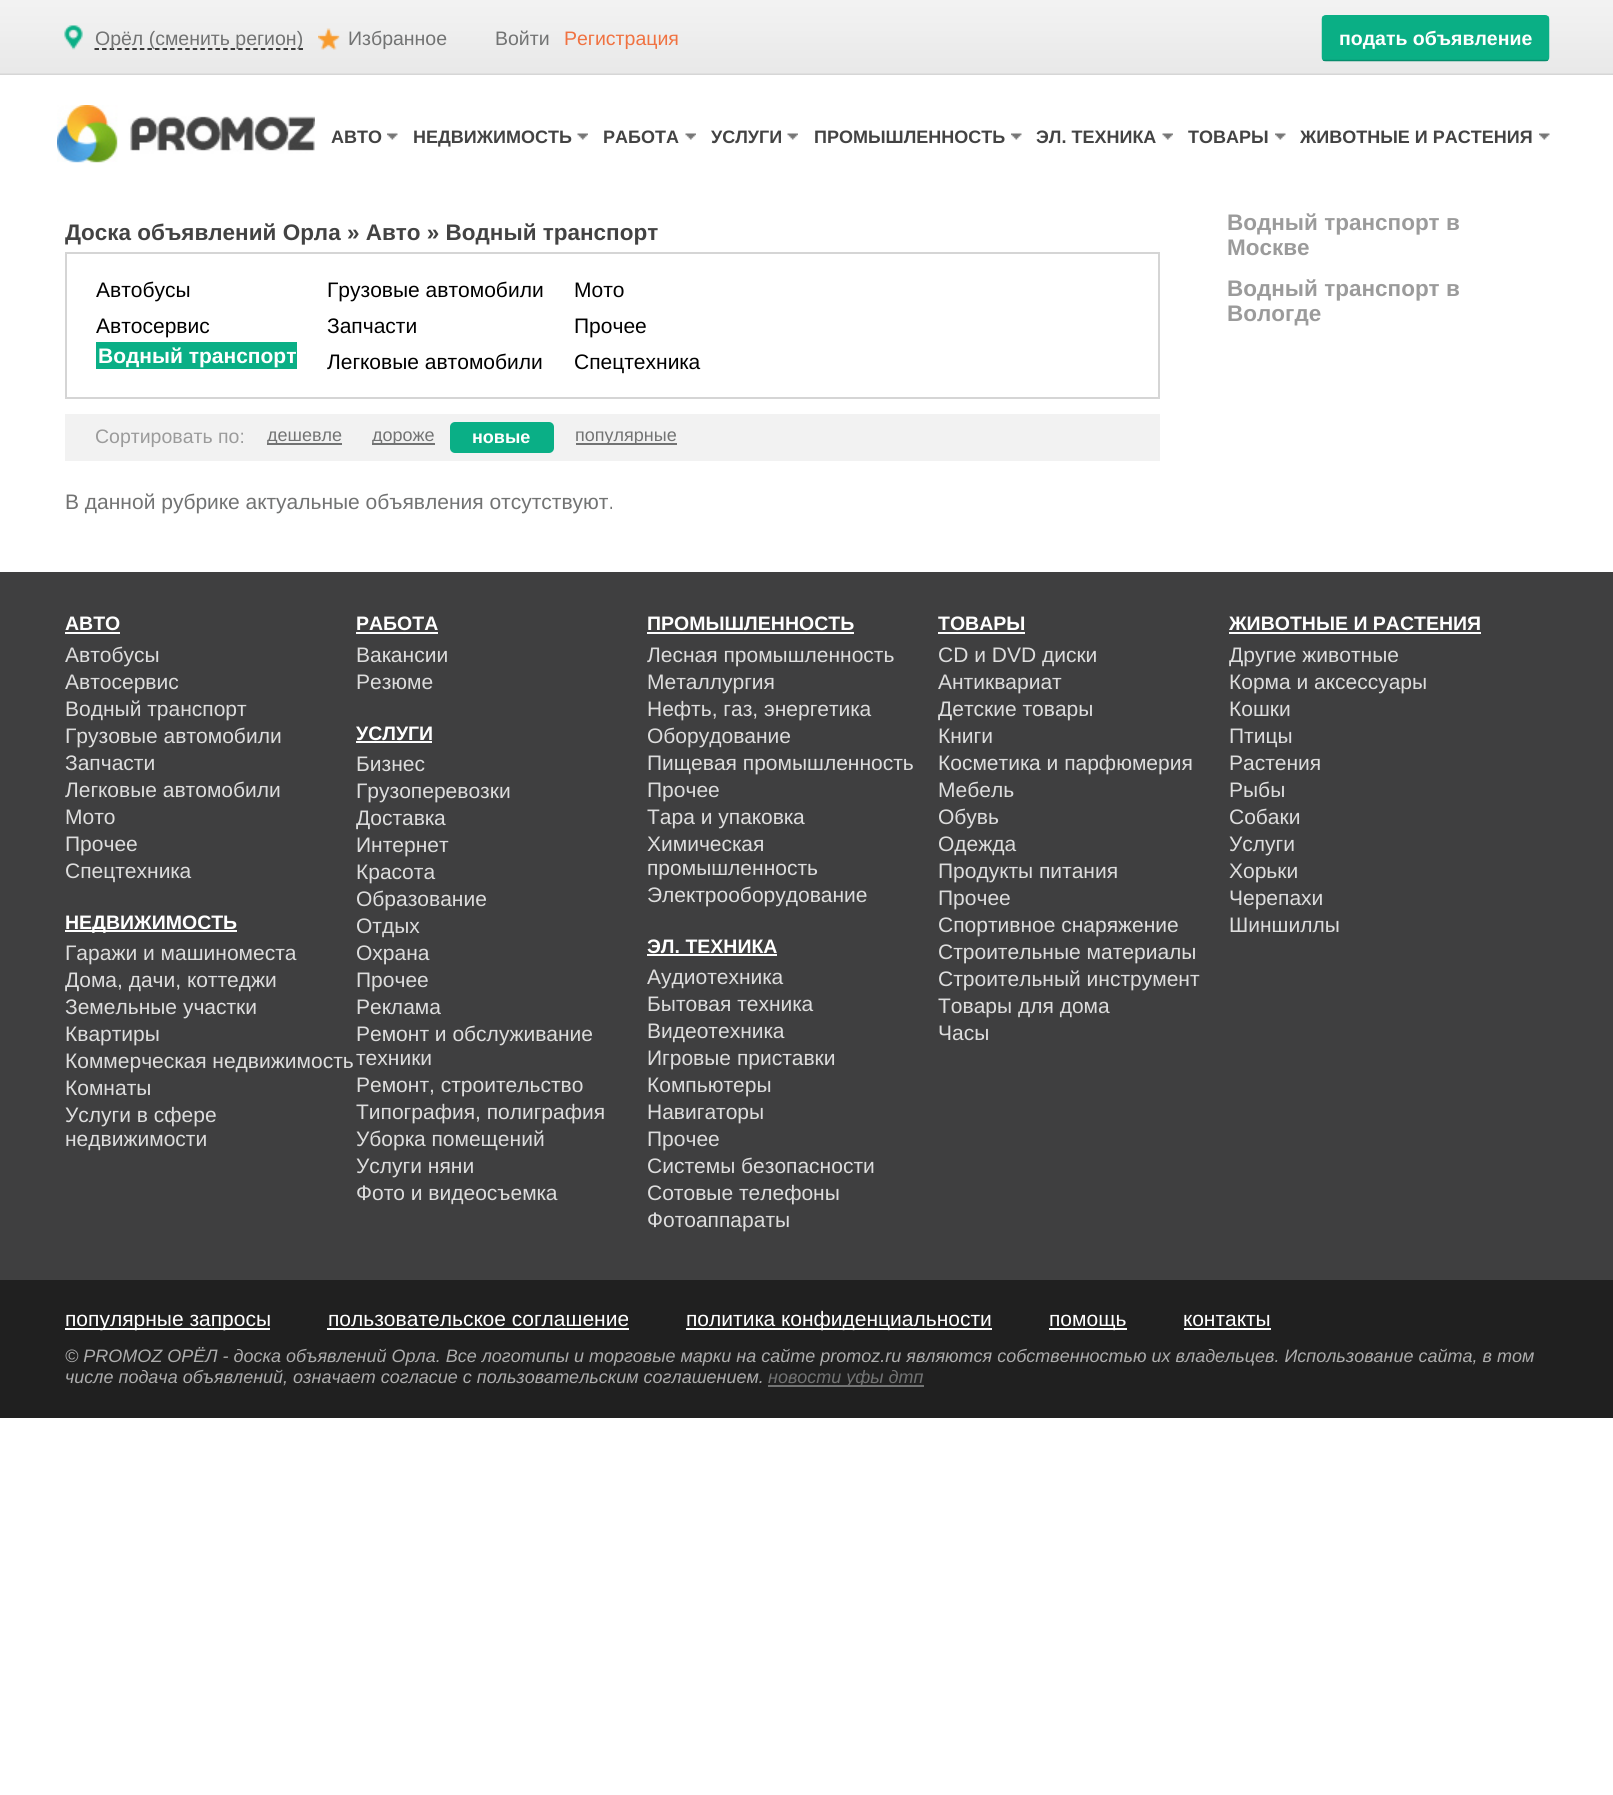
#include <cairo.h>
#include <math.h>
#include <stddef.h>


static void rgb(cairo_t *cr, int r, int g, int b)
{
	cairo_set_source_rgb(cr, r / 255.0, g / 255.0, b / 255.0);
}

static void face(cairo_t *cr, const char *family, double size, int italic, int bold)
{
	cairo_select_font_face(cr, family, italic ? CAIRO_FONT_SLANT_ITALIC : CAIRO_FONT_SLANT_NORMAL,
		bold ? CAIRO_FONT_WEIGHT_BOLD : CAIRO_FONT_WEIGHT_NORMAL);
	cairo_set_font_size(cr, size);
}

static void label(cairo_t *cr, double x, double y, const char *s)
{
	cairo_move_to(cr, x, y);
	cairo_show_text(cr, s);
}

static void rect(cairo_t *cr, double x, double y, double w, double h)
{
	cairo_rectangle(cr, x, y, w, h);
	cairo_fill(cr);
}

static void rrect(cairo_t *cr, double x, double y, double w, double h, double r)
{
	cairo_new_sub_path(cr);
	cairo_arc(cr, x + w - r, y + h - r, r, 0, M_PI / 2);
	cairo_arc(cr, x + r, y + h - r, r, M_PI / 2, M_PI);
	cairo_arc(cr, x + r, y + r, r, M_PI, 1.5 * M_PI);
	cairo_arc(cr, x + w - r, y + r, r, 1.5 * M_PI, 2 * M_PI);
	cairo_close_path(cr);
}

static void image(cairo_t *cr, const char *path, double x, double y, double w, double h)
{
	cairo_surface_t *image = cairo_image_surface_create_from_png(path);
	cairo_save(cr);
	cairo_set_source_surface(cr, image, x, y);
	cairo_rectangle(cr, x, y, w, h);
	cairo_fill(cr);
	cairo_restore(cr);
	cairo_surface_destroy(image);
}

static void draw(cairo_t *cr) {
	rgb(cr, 255, 255, 255);
	cairo_paint(cr);
	image(cr, "image0.png", 0, 0, 1613, 75);
	image(cr, "image1.png", 64, 25, 19, 25);
	cairo_new_path(cr);
	cairo_move_to(cr, 94.5, 49);
	cairo_line_to(cr, 303, 49);
	rgb(cr, 0, 0, 0);
	cairo_set_line_width(cr, 1.5);
	cairo_set_dash(cr, (double[]){4.5, 3.06}, 2, 0);
	cairo_stroke(cr);
	face(cr, "Liberation Sans", 19.5, 0, 0);
	rgb(cr, 114, 115, 115);
	label(cr, 95, 45, "Орёл (сменить регион)");
	image(cr, "image2.png", 318, 28, 22, 22);
	label(cr, 348, 45, "Избранное");
	label(cr, 495, 45, "Войти");
	rgb(cr, 240, 114, 65);
	label(cr, 564, 45, "Регистрация");
	image(cr, "image3.png", 1321, 15, 229, 47);
	face(cr, "Liberation Sans", 19.5, 0, 1);
	rgb(cr, 255, 255, 255);
	label(cr, 1339, 45, "подать объявление");
	image(cr, "image4.png", 57, 105, 258, 58);
	image(cr, "image5.png", 387, 132, 11, 8);
	face(cr, "Liberation Sans", 18, 0, 1);
	rgb(cr, 67, 67, 67);
	label(cr, 331, 143, "АВТО");
	image(cr, "image6.png", 577, 133, 11, 7);
	label(cr, 413, 143, "НЕДВИЖИМОСТЬ");
	image(cr, "image6.png", 685, 133, 11, 7);
	label(cr, 603, 143, "РАБОТА");
	image(cr, "image7.png", 787, 133, 11, 7);
	label(cr, 711, 143, "УСЛУГИ");
	image(cr, "image8.png", 1011, 132, 11, 8);
	label(cr, 814, 143, "ПРОМЫШЛЕННОСТЬ");
	image(cr, "image6.png", 1162, 133, 11, 7);
	label(cr, 1036, 143, "ЭЛ. ТЕХНИКА");
	image(cr, "image9.png", 1275, 132, 11, 8);
	label(cr, 1188, 143, "ТОВАРЫ");
	image(cr, "image8.png", 1539, 132, 11, 8);
	label(cr, 1300, 143, "ЖИВОТНЫЕ И РАСТЕНИЯ");
	face(cr, "Liberation Sans", 22.5, 0, 1);
	label(cr, 65, 240, "Доска объявлений Орла » Авто » Водный транспорт");
	cairo_rectangle(cr, 66, 253, 1093, 145);
	rgb(cr, 213, 213, 213);
	cairo_set_line_width(cr, 2);
	cairo_set_dash(cr, NULL, 0, 0);
	cairo_stroke(cr);
	face(cr, "Liberation Sans", 21, 0, 0);
	rgb(cr, 0, 0, 0);
	label(cr, 96, 297, "Автобусы");
	label(cr, 96, 333, "Автосервис");
	rgb(cr, 10, 175, 134);
	rect(cr, 96, 342, 201, 27);
	face(cr, "Liberation Sans", 21, 0, 1);
	rgb(cr, 255, 255, 255);
	label(cr, 98, 363, "Водный транспорт");
	face(cr, "Liberation Sans", 21, 0, 0);
	rgb(cr, 0, 0, 0);
	label(cr, 327, 297, "Грузовые автомобили");
	label(cr, 327, 333, "Запчасти");
	label(cr, 327, 369, "Легковые автомобили");
	label(cr, 574, 297, "Мото");
	label(cr, 574, 333, "Прочее");
	label(cr, 574, 369, "Спецтехника");
	rgb(cr, 242, 242, 242);
	rect(cr, 65, 414, 1095, 47);
	face(cr, "Liberation Sans", 19.5, 0, 0);
	rgb(cr, 155, 155, 155);
	label(cr, 95, 443, "Сортировать по:");
	rgb(cr, 114, 115, 115);
	rect(cr, 267, 443, 75, 2);
	face(cr, "Liberation Sans", 18, 0, 0);
	label(cr, 267, 441, "дешевле");
	rect(cr, 372, 443, 63, 2);
	label(cr, 372, 441, "дороже");
	rgb(cr, 10, 175, 134);
	rrect(cr, 450, 422, 104, 31, 5);
	cairo_fill(cr);
	face(cr, "Liberation Sans", 18, 0, 1);
	rgb(cr, 255, 255, 255);
	label(cr, 472, 443, "новые");
	rgb(cr, 114, 115, 115);
	rect(cr, 576, 443, 101, 2);
	face(cr, "Liberation Sans", 18, 0, 0);
	label(cr, 575, 441, "популярные");
	face(cr, "Liberation Sans", 21, 0, 0);
	label(cr, 65, 509, "В данной рубрике актуальные объявления отсутствуют.");
	face(cr, "Liberation Sans", 22.5, 0, 1);
	rgb(cr, 155, 155, 155);
	label(cr, 1227, 230, "Водный транспорт в");
	label(cr, 1227, 255, "Москве");
	label(cr, 1227, 296, "Водный транспорт в");
	label(cr, 1227, 321, "Вологде");
	rgb(cr, 63, 63, 64);
	rect(cr, 0, 572, 1613, 708);
	face(cr, "Liberation Sans", 19.5, 0, 1);
	rgb(cr, 255, 255, 255);
	label(cr, 65, 630, "АВТО");
	rect(cr, 65, 632, 55, 2);
	face(cr, "Liberation Sans", 21, 0, 0);
	rgb(cr, 221, 221, 221);
	label(cr, 65, 662, "Автобусы");
	label(cr, 65, 689, "Автосервис");
	label(cr, 65, 716, "Водный транспорт");
	label(cr, 65, 743, "Грузовые автомобили");
	label(cr, 65, 770, "Запчасти");
	label(cr, 65, 797, "Легковые автомобили");
	label(cr, 65, 824, "Мото");
	label(cr, 65, 851, "Прочее");
	label(cr, 65, 878, "Спецтехника");
	rgb(cr, 255, 255, 255);
	rect(cr, 65, 930, 172, 2);
	face(cr, "Liberation Sans", 19.5, 0, 1);
	label(cr, 65, 929, "НЕДВИЖИМОСТЬ");
	face(cr, "Liberation Sans", 21, 0, 0);
	rgb(cr, 221, 221, 221);
	label(cr, 65, 960, "Гаражи и машиноместа");
	label(cr, 65, 987, "Дома, дачи, коттеджи");
	label(cr, 65, 1014, "Земельные участки");
	label(cr, 65, 1041, "Квартиры");
	label(cr, 65, 1068, "Коммерческая недвижимость");
	label(cr, 65, 1095, "Комнаты");
	label(cr, 65, 1122, "Услуги в сфере");
	label(cr, 65, 1146, "недвижимости");
	face(cr, "Liberation Sans", 19.5, 0, 1);
	rgb(cr, 255, 255, 255);
	label(cr, 356, 630, "РАБОТА");
	rect(cr, 356, 632, 82, 2);
	face(cr, "Liberation Sans", 21, 0, 0);
	rgb(cr, 221, 221, 221);
	label(cr, 356, 662, "Вакансии");
	label(cr, 356, 689, "Резюме");
	face(cr, "Liberation Sans", 19.5, 0, 1);
	rgb(cr, 255, 255, 255);
	label(cr, 356, 740, "УСЛУГИ");
	rect(cr, 356, 741, 76, 2);
	face(cr, "Liberation Sans", 21, 0, 0);
	rgb(cr, 221, 221, 221);
	label(cr, 356, 771, "Бизнес");
	label(cr, 356, 798, "Грузоперевозки");
	label(cr, 356, 825, "Доставка");
	label(cr, 356, 852, "Интернет");
	label(cr, 356, 879, "Красота");
	label(cr, 356, 906, "Образование");
	label(cr, 356, 933, "Отдых");
	label(cr, 356, 960, "Охрана");
	label(cr, 356, 987, "Прочее");
	label(cr, 356, 1014, "Реклама");
	label(cr, 356, 1041, "Ремонт и обслуживание");
	label(cr, 356, 1065, "техники");
	label(cr, 356, 1092, "Ремонт, строительство");
	label(cr, 356, 1119, "Типография, полиграфия");
	label(cr, 356, 1146, "Уборка помещений");
	label(cr, 356, 1173, "Услуги няни");
	label(cr, 356, 1200, "Фото и видеосъемка");
	face(cr, "Liberation Sans", 19.5, 0, 1);
	rgb(cr, 255, 255, 255);
	label(cr, 647, 630, "ПРОМЫШЛЕННОСТЬ");
	rect(cr, 647, 632, 207, 2);
	face(cr, "Liberation Sans", 21, 0, 0);
	rgb(cr, 221, 221, 221);
	label(cr, 647, 662, "Лесная промышленность");
	label(cr, 647, 689, "Металлургия");
	label(cr, 647, 716, "Нефть, газ, энергетика");
	label(cr, 647, 743, "Оборудование");
	label(cr, 647, 770, "Пищевая промышленность");
	label(cr, 647, 797, "Прочее");
	label(cr, 647, 824, "Тара и упаковка");
	label(cr, 647, 851, "Химическая");
	label(cr, 647, 875, "промышленность");
	label(cr, 647, 902, "Электрооборудование");
	face(cr, "Liberation Sans", 19.5, 0, 1);
	rgb(cr, 255, 255, 255);
	label(cr, 647, 953, "ЭЛ. ТЕХНИКА");
	rect(cr, 647, 954, 130, 2);
	face(cr, "Liberation Sans", 21, 0, 0);
	rgb(cr, 221, 221, 221);
	label(cr, 647, 984, "Аудиотехника");
	label(cr, 647, 1011, "Бытовая техника");
	label(cr, 647, 1038, "Видеотехника");
	label(cr, 647, 1065, "Игровые приставки");
	label(cr, 647, 1092, "Компьютеры");
	label(cr, 647, 1119, "Навигаторы");
	label(cr, 647, 1146, "Прочее");
	label(cr, 647, 1173, "Системы безопасности");
	label(cr, 647, 1200, "Сотовые телефоны");
	label(cr, 647, 1227, "Фотоаппараты");
	face(cr, "Liberation Sans", 19.5, 0, 1);
	rgb(cr, 255, 255, 255);
	label(cr, 938, 630, "ТОВАРЫ");
	rect(cr, 938, 632, 87, 2);
	face(cr, "Liberation Sans", 21, 0, 0);
	rgb(cr, 221, 221, 221);
	label(cr, 938, 662, "CD и DVD диски");
	label(cr, 938, 689, "Антиквариат");
	label(cr, 938, 716, "Детские товары");
	label(cr, 938, 743, "Книги");
	label(cr, 938, 770, "Косметика и парфюмерия");
	label(cr, 938, 797, "Мебель");
	label(cr, 938, 824, "Обувь");
	label(cr, 938, 851, "Одежда");
	label(cr, 938, 878, "Продукты питания");
	label(cr, 938, 905, "Прочее");
	label(cr, 938, 932, "Спортивное снаряжение");
	label(cr, 938, 959, "Строительные материалы");
	label(cr, 938, 986, "Строительный инструмент");
	label(cr, 938, 1013, "Товары для дома");
	label(cr, 938, 1040, "Часы");
	face(cr, "Liberation Sans", 19.5, 0, 1);
	rgb(cr, 255, 255, 255);
	label(cr, 1229, 630, "ЖИВОТНЫЕ И РАСТЕНИЯ");
	rect(cr, 1229, 632, 252, 2);
	face(cr, "Liberation Sans", 21, 0, 0);
	rgb(cr, 221, 221, 221);
	label(cr, 1229, 662, "Другие животные");
	label(cr, 1229, 689, "Корма и аксессуары");
	label(cr, 1229, 716, "Кошки");
	label(cr, 1229, 743, "Птицы");
	label(cr, 1229, 770, "Растения");
	label(cr, 1229, 797, "Рыбы");
	label(cr, 1229, 824, "Собаки");
	label(cr, 1229, 851, "Услуги");
	label(cr, 1229, 878, "Хорьки");
	label(cr, 1229, 905, "Черепахи");
	label(cr, 1229, 932, "Шиншиллы");
	rgb(cr, 32, 32, 32);
	rect(cr, 0, 1280, 1613, 138);
	rgb(cr, 255, 255, 255);
	rect(cr, 65, 1328, 205, 2);
	label(cr, 65, 1326, "популярные запросы");
	label(cr, 328, 1326, "пользовательское соглашение");
	rect(cr, 327, 1328, 302, 2);
	rect(cr, 686, 1328, 306, 2);
	label(cr, 686, 1326, "политика конфиденциальности");
	rect(cr, 1049, 1328, 78, 2);
	label(cr, 1049, 1326, "помощь");
	label(cr, 1183, 1326, "контакты");
	rect(cr, 1184, 1328, 87, 2);
	face(cr, "Liberation Sans", 18, 1, 0);
	rgb(cr, 173, 173, 173);
	label(cr, 65, 1362, "© PROMOZ ОРЁЛ - доска объявлений Орла. Все логотипы и торговые марки на сайте promoz.ru являются собственностью их владельцев. Использование сайта, в том");
	label(cr, 65, 1383, "числе подача объявлений, означает согласие с пользовательским соглашением.");
	rgb(cr, 114, 115, 115);
	rect(cr, 768, 1385, 156, 2);
	label(cr, 768, 1383, "новости уфы дтп");
}

int main(void) {
	cairo_surface_t *surface = cairo_image_surface_create(CAIRO_FORMAT_RGB24, 1613, 1795);
	cairo_t *cr = cairo_create(surface);
	cairo_font_options_t *options = cairo_font_options_create();
	cairo_font_options_set_hint_metrics(options, CAIRO_HINT_METRICS_OFF);
	cairo_font_options_set_hint_style(options, CAIRO_HINT_STYLE_NONE);
	cairo_set_font_options(cr, options);
	cairo_set_miter_limit(cr, 4);
	draw(cr);
	cairo_surface_write_to_png(surface, "render.png");
	cairo_font_options_destroy(options);
	cairo_destroy(cr);
	cairo_surface_destroy(surface);
	return 0;
}
